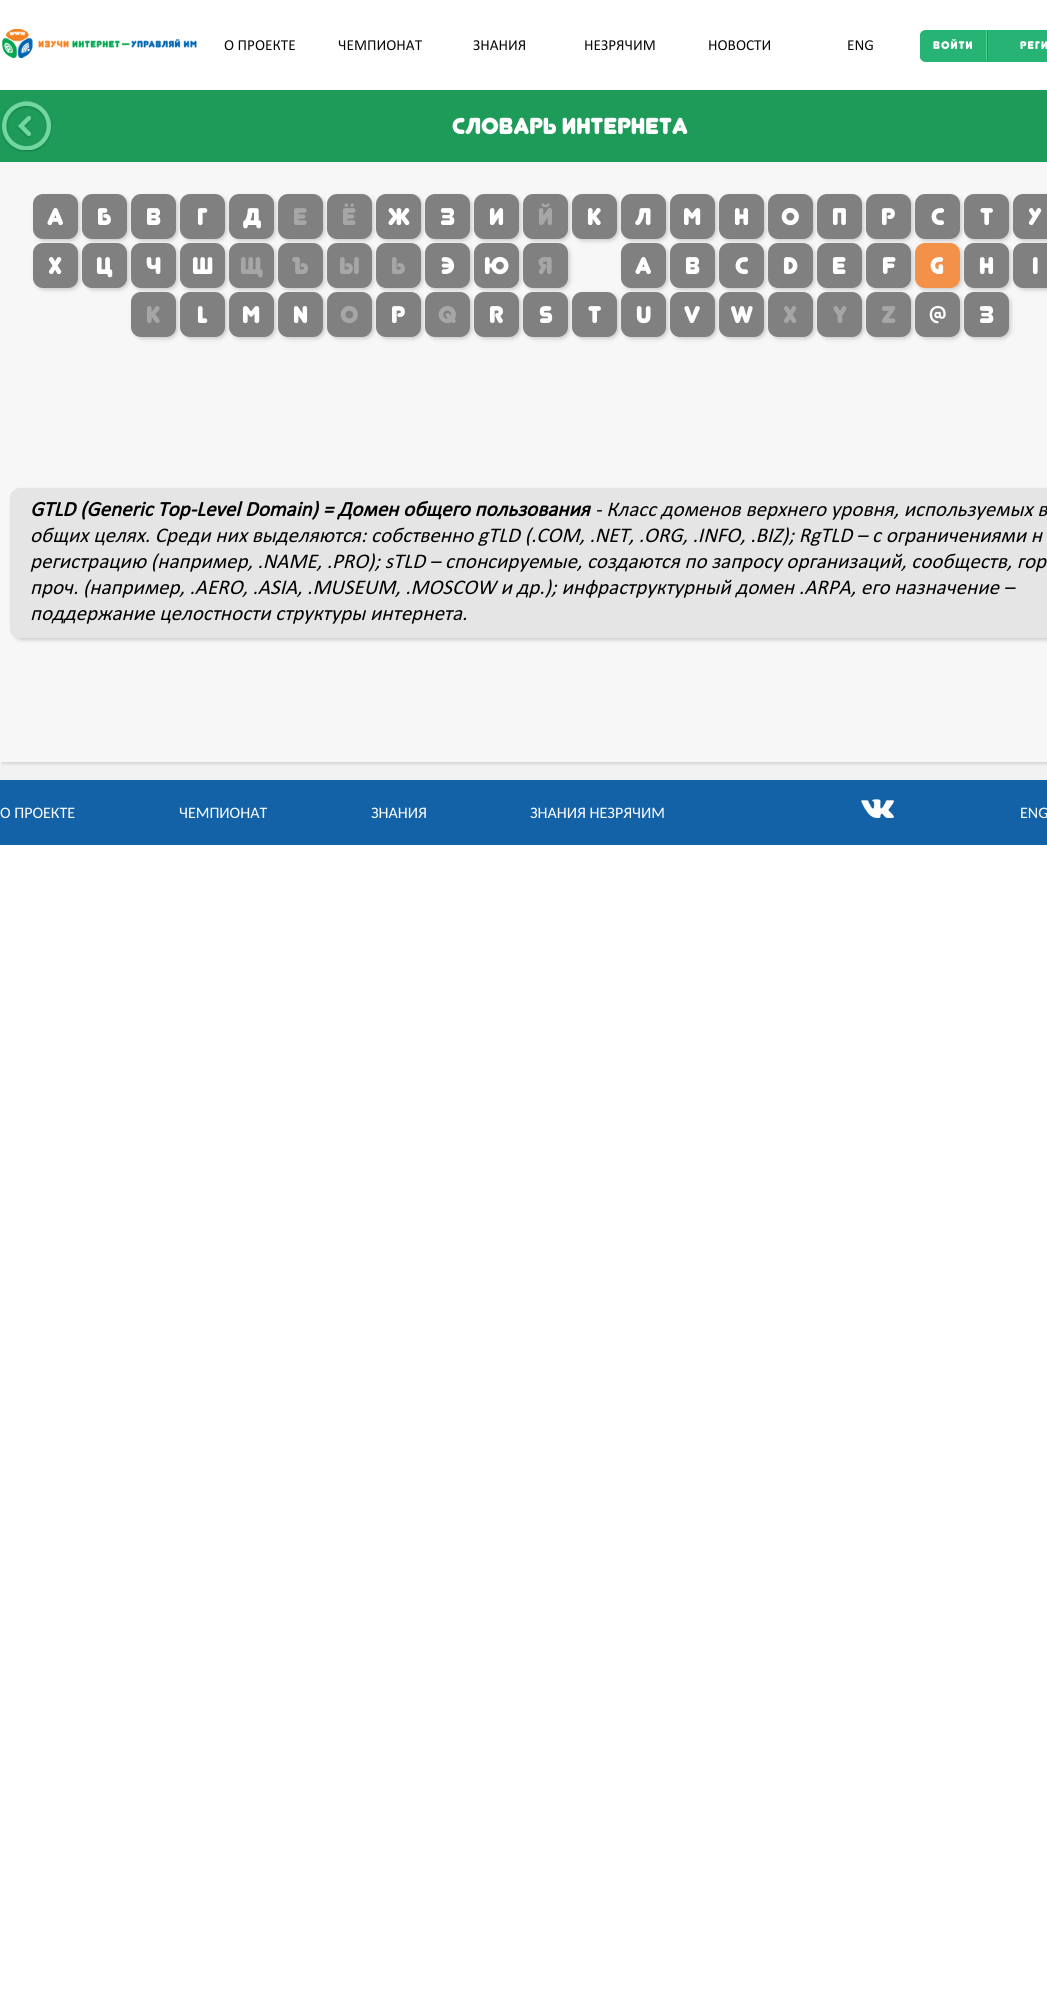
#include <cairo.h>
#include <math.h>
#include <stddef.h>


static void rgb(cairo_t *cr, int r, int g, int b)
{
	cairo_set_source_rgb(cr, r / 255.0, g / 255.0, b / 255.0);
}

static void face(cairo_t *cr, const char *family, double size, int italic, int bold)
{
	cairo_select_font_face(cr, family, italic ? CAIRO_FONT_SLANT_ITALIC : CAIRO_FONT_SLANT_NORMAL,
		bold ? CAIRO_FONT_WEIGHT_BOLD : CAIRO_FONT_WEIGHT_NORMAL);
	cairo_set_font_size(cr, size);
}

static void label(cairo_t *cr, double x, double y, const char *s)
{
	cairo_move_to(cr, x, y);
	cairo_show_text(cr, s);
}

static void tracked(cairo_t *cr, double x, double y, const char *s, double letter, double word)
{
	cairo_move_to(cr, x, y);
	while (*s) {
		char ch[5] = {0};
		int n = 0;
		do ch[n++] = *s++; while ((*s & 0xC0) == 0x80);
		cairo_show_text(cr, ch);
		cairo_rel_move_to(cr, letter + word * (*ch == ' '), 0);
	}
}

static void rect(cairo_t *cr, double x, double y, double w, double h)
{
	cairo_rectangle(cr, x, y, w, h);
	cairo_fill(cr);
}

static void rrect(cairo_t *cr, double x, double y, double w, double h, double r)
{
	cairo_new_sub_path(cr);
	cairo_arc(cr, x + w - r, y + h - r, r, 0, M_PI / 2);
	cairo_arc(cr, x + r, y + h - r, r, M_PI / 2, M_PI);
	cairo_arc(cr, x + r, y + r, r, M_PI, 1.5 * M_PI);
	cairo_arc(cr, x + w - r, y + r, r, 1.5 * M_PI, 2 * M_PI);
	cairo_close_path(cr);
}

static void soft_shadow(cairo_t *cr, double x, double y, double w, double h, double r, double blur, double alpha)
{
	cairo_push_group_with_content(cr, CAIRO_CONTENT_ALPHA);
	cairo_set_operator(cr, CAIRO_OPERATOR_SOURCE);
	for (int i = 15; i >= -15 && fmin(w, h) + blur * i / 3 > 0; i -= 2) {
		double e = blur * i / 6;
		cairo_set_source_rgba(cr, 0, 0, 0, alpha * erfc((i - 1) / 8.5) / 2);
		rrect(cr, x - e, y - e, w + 2 * e, h + 2 * e, fmax(0, fmin(r + e + blur * .6, fmin(w, h) / 2 + e)));
		cairo_fill(cr);
	}
	cairo_pattern_t *soft = cairo_pop_group(cr);
	cairo_mask(cr, soft);
	cairo_pattern_destroy(soft);
}

static void image(cairo_t *cr, const char *path, double x, double y, double w, double h)
{
	cairo_surface_t *image = cairo_image_surface_create_from_png(path);
	cairo_save(cr);
	cairo_set_source_surface(cr, image, x, y);
	cairo_rectangle(cr, x, y, w, h);
	cairo_fill(cr);
	cairo_restore(cr);
	cairo_surface_destroy(image);
}

static void draw(cairo_t *cr) {
	rgb(cr, 255, 255, 255);
	cairo_paint(cr);
	image(cr, "image0.png", 2, 29, 195, 29);
	face(cr, "Calibri", 15.25, 0, 0);
	rgb(cr, 10, 10, 10);
	label(cr, 224, 50, "О ПРОЕКТЕ");
	label(cr, 338, 50, "ЧЕМПИОНАТ");
	label(cr, 473, 50, "ЗНАНИЯ");
	label(cr, 584, 50, "НЕЗРЯЧИМ");
	label(cr, 708, 50, "НОВОСТИ");
	label(cr, 847, 50, "ENG");
	rgb(cr, 38, 179, 115);
	cairo_new_path(cr);
	cairo_move_to(cr, 926, 30);
	cairo_line_to(cr, 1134, 30);
	cairo_curve_to(cr, 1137, 30, 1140, 32, 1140, 35);
	cairo_line_to(cr, 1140, 57);
	cairo_curve_to(cr, 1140, 60, 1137, 62, 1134, 62);
	cairo_line_to(cr, 926, 62);
	cairo_curve_to(cr, 923, 62, 920, 60, 920, 57);
	cairo_line_to(cr, 920, 35);
	cairo_curve_to(cr, 920, 32, 923, 30, 926, 30);
	cairo_close_path(cr);
	cairo_fill(cr);
	image(cr, "image1.png", 986, 30, 2, 31);
	face(cr, "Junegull", 11, 0, 0);
	rgb(cr, 255, 255, 255);
	tracked(cr, 933, 49, "ВОЙТИ", 1, 0);
	tracked(cr, 1020, 49, "РЕГИ", 1, 0);
	rgb(cr, 242, 242, 242);
	rect(cr, 0, 762, 1047, 18);
	rgb(cr, 30, 155, 89);
	rect(cr, 0, 90, 1047, 72);
	image(cr, "image2.png", 1, 101, 51, 51);
	face(cr, "Junegull", 23, 0, 0);
	rgb(cr, 255, 255, 255);
	label(cr, 452, 134, "Словарь интернета");
	rgb(cr, 215, 215, 215);
	soft_shadow(cr, 2, 164, 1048, 600, 0, 1, 1);
	rgb(cr, 247, 247, 247);
	rect(cr, 0, 162, 1047, 600);
	rgb(cr, 204, 204, 204);
	soft_shadow(cr, 35, 196, 45, 45, 10, 2, 1);
	rgb(cr, 128, 128, 128);
	rrect(cr, 33, 194, 45, 45, 10);
	cairo_fill(cr);
	face(cr, "Junegull", 24, 0, 0);
	rgb(cr, 255, 255, 255);
	label(cr, 47, 225, "А");
	rgb(cr, 204, 204, 204);
	soft_shadow(cr, 84, 196, 45, 45, 10, 2, 1);
	rgb(cr, 128, 128, 128);
	rrect(cr, 82, 194, 45, 45, 10);
	cairo_fill(cr);
	rgb(cr, 255, 255, 255);
	label(cr, 97, 225, "Б");
	rgb(cr, 204, 204, 204);
	soft_shadow(cr, 133, 196, 45, 45, 10, 2, 1);
	rgb(cr, 128, 128, 128);
	rrect(cr, 131, 194, 45, 45, 10);
	cairo_fill(cr);
	rgb(cr, 255, 255, 255);
	label(cr, 146, 225, "В");
	rgb(cr, 204, 204, 204);
	soft_shadow(cr, 182, 196, 45, 45, 10, 2, 1);
	rgb(cr, 128, 128, 128);
	rrect(cr, 180, 194, 45, 45, 10);
	cairo_fill(cr);
	rgb(cr, 255, 255, 255);
	label(cr, 197, 225, "Г");
	rgb(cr, 204, 204, 204);
	soft_shadow(cr, 231, 196, 45, 45, 10, 2, 1);
	rgb(cr, 128, 128, 128);
	rrect(cr, 229, 194, 45, 45, 10);
	cairo_fill(cr);
	rgb(cr, 255, 255, 255);
	label(cr, 243, 225, "Д");
	rgb(cr, 204, 204, 204);
	soft_shadow(cr, 280, 196, 45, 45, 10, 2, 1);
	rgb(cr, 128, 128, 128);
	rrect(cr, 278, 194, 45, 45, 10);
	cairo_fill(cr);
	rgb(cr, 166, 166, 166);
	label(cr, 293, 225, "Е");
	rgb(cr, 204, 204, 204);
	soft_shadow(cr, 329, 196, 45, 45, 10, 2, 1);
	rgb(cr, 128, 128, 128);
	rrect(cr, 327, 194, 45, 45, 10);
	cairo_fill(cr);
	rgb(cr, 166, 166, 166);
	label(cr, 342, 225, "Ё");
	rgb(cr, 204, 204, 204);
	soft_shadow(cr, 378, 196, 45, 45, 10, 2, 1);
	rgb(cr, 128, 128, 128);
	rrect(cr, 376, 194, 45, 45, 10);
	cairo_fill(cr);
	rgb(cr, 255, 255, 255);
	label(cr, 388, 225, "Ж");
	rgb(cr, 204, 204, 204);
	soft_shadow(cr, 427, 196, 45, 45, 10, 2, 1);
	rgb(cr, 128, 128, 128);
	rrect(cr, 425, 194, 45, 45, 10);
	cairo_fill(cr);
	rgb(cr, 255, 255, 255);
	label(cr, 440, 225, "З");
	rgb(cr, 204, 204, 204);
	soft_shadow(cr, 476, 196, 45, 45, 10, 2, 1);
	rgb(cr, 128, 128, 128);
	rrect(cr, 474, 194, 45, 45, 10);
	cairo_fill(cr);
	rgb(cr, 255, 255, 255);
	label(cr, 489, 225, "И");
	rgb(cr, 204, 204, 204);
	soft_shadow(cr, 525, 196, 45, 45, 10, 2, 1);
	rgb(cr, 128, 128, 128);
	rrect(cr, 523, 194, 45, 45, 10);
	cairo_fill(cr);
	rgb(cr, 166, 166, 166);
	label(cr, 538, 225, "Й");
	rgb(cr, 204, 204, 204);
	soft_shadow(cr, 574, 196, 45, 45, 10, 2, 1);
	rgb(cr, 128, 128, 128);
	rrect(cr, 572, 194, 45, 45, 10);
	cairo_fill(cr);
	rgb(cr, 255, 255, 255);
	label(cr, 587, 225, "К");
	rgb(cr, 204, 204, 204);
	soft_shadow(cr, 623, 196, 45, 45, 10, 2, 1);
	rgb(cr, 128, 128, 128);
	rrect(cr, 621, 194, 45, 45, 10);
	cairo_fill(cr);
	rgb(cr, 255, 255, 255);
	label(cr, 635, 225, "Л");
	rgb(cr, 204, 204, 204);
	soft_shadow(cr, 672, 196, 45, 45, 10, 2, 1);
	rgb(cr, 128, 128, 128);
	rrect(cr, 670, 194, 45, 45, 10);
	cairo_fill(cr);
	rgb(cr, 255, 255, 255);
	label(cr, 683, 225, "М");
	rgb(cr, 204, 204, 204);
	soft_shadow(cr, 721, 196, 45, 45, 10, 2, 1);
	rgb(cr, 128, 128, 128);
	rrect(cr, 719, 194, 45, 45, 10);
	cairo_fill(cr);
	rgb(cr, 255, 255, 255);
	label(cr, 734, 225, "Н");
	rgb(cr, 204, 204, 204);
	soft_shadow(cr, 770, 196, 45, 45, 10, 2, 1);
	rgb(cr, 128, 128, 128);
	rrect(cr, 768, 194, 45, 45, 10);
	cairo_fill(cr);
	rgb(cr, 255, 255, 255);
	label(cr, 781, 225, "О");
	rgb(cr, 204, 204, 204);
	soft_shadow(cr, 819, 196, 45, 45, 10, 2, 1);
	rgb(cr, 128, 128, 128);
	rrect(cr, 817, 194, 45, 45, 10);
	cairo_fill(cr);
	rgb(cr, 255, 255, 255);
	label(cr, 832, 225, "П");
	rgb(cr, 204, 204, 204);
	soft_shadow(cr, 868, 196, 45, 45, 10, 2, 1);
	rgb(cr, 128, 128, 128);
	rrect(cr, 866, 194, 45, 45, 10);
	cairo_fill(cr);
	rgb(cr, 255, 255, 255);
	label(cr, 881, 225, "Р");
	rgb(cr, 204, 204, 204);
	soft_shadow(cr, 917, 196, 45, 45, 10, 2, 1);
	rgb(cr, 128, 128, 128);
	rrect(cr, 915, 194, 45, 45, 10);
	cairo_fill(cr);
	rgb(cr, 255, 255, 255);
	label(cr, 931, 225, "С");
	rgb(cr, 204, 204, 204);
	soft_shadow(cr, 966, 196, 45, 45, 10, 2, 1);
	rgb(cr, 128, 128, 128);
	rrect(cr, 964, 194, 45, 45, 10);
	cairo_fill(cr);
	rgb(cr, 255, 255, 255);
	label(cr, 980, 225, "Т");
	rgb(cr, 204, 204, 204);
	soft_shadow(cr, 1015, 196, 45, 45, 10, 2, 1);
	rgb(cr, 128, 128, 128);
	rrect(cr, 1013, 194, 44, 45, 10);
	cairo_fill(cr);
	rgb(cr, 255, 255, 255);
	label(cr, 1028, 225, "У");
	rgb(cr, 204, 204, 204);
	soft_shadow(cr, 35, 245, 45, 45, 10, 2, 1);
	rgb(cr, 128, 128, 128);
	rrect(cr, 33, 243, 45, 45, 10);
	cairo_fill(cr);
	rgb(cr, 255, 255, 255);
	label(cr, 48, 274, "Х");
	rgb(cr, 204, 204, 204);
	soft_shadow(cr, 84, 245, 45, 45, 10, 2, 1);
	rgb(cr, 128, 128, 128);
	rrect(cr, 82, 243, 45, 45, 10);
	cairo_fill(cr);
	rgb(cr, 255, 255, 255);
	label(cr, 96, 274, "Ц");
	rgb(cr, 204, 204, 204);
	soft_shadow(cr, 133, 245, 45, 45, 10, 2, 1);
	rgb(cr, 128, 128, 128);
	rrect(cr, 131, 243, 45, 45, 10);
	cairo_fill(cr);
	rgb(cr, 255, 255, 255);
	label(cr, 146, 274, "Ч");
	rgb(cr, 204, 204, 204);
	soft_shadow(cr, 182, 245, 45, 45, 10, 2, 1);
	rgb(cr, 128, 128, 128);
	rrect(cr, 180, 243, 45, 45, 10);
	cairo_fill(cr);
	rgb(cr, 255, 255, 255);
	label(cr, 192, 274, "Ш");
	rgb(cr, 204, 204, 204);
	soft_shadow(cr, 231, 245, 45, 45, 10, 2, 1);
	rgb(cr, 128, 128, 128);
	rrect(cr, 229, 243, 45, 45, 10);
	cairo_fill(cr);
	rgb(cr, 166, 166, 166);
	label(cr, 240, 274, "Щ");
	rgb(cr, 204, 204, 204);
	soft_shadow(cr, 280, 245, 45, 45, 10, 2, 1);
	rgb(cr, 128, 128, 128);
	rrect(cr, 278, 243, 45, 45, 10);
	cairo_fill(cr);
	rgb(cr, 166, 166, 166);
	label(cr, 292, 274, "Ъ");
	rgb(cr, 204, 204, 204);
	soft_shadow(cr, 329, 245, 45, 45, 10, 2, 1);
	rgb(cr, 128, 128, 128);
	rrect(cr, 327, 243, 45, 45, 10);
	cairo_fill(cr);
	rgb(cr, 166, 166, 166);
	label(cr, 339, 274, "Ы");
	rgb(cr, 204, 204, 204);
	soft_shadow(cr, 378, 245, 45, 45, 10, 2, 1);
	rgb(cr, 128, 128, 128);
	rrect(cr, 376, 243, 45, 45, 10);
	cairo_fill(cr);
	rgb(cr, 166, 166, 166);
	label(cr, 391, 274, "Ь");
	rgb(cr, 204, 204, 204);
	soft_shadow(cr, 427, 245, 45, 45, 10, 2, 1);
	rgb(cr, 128, 128, 128);
	rrect(cr, 425, 243, 45, 45, 10);
	cairo_fill(cr);
	rgb(cr, 255, 255, 255);
	label(cr, 441, 274, "Э");
	rgb(cr, 204, 204, 204);
	soft_shadow(cr, 476, 245, 45, 45, 10, 2, 1);
	rgb(cr, 128, 128, 128);
	rrect(cr, 474, 243, 45, 45, 10);
	cairo_fill(cr);
	rgb(cr, 255, 255, 255);
	label(cr, 484, 274, "Ю");
	rgb(cr, 204, 204, 204);
	soft_shadow(cr, 525, 245, 45, 45, 10, 2, 1);
	rgb(cr, 128, 128, 128);
	rrect(cr, 523, 243, 45, 45, 10);
	cairo_fill(cr);
	rgb(cr, 166, 166, 166);
	label(cr, 538, 274, "Я");
	rgb(cr, 204, 204, 204);
	soft_shadow(cr, 623, 245, 45, 45, 10, 2, 1);
	rgb(cr, 128, 128, 128);
	rrect(cr, 621, 243, 45, 45, 10);
	cairo_fill(cr);
	rgb(cr, 255, 255, 255);
	label(cr, 635, 274, "A");
	rgb(cr, 204, 204, 204);
	soft_shadow(cr, 672, 245, 45, 45, 10, 2, 1);
	rgb(cr, 128, 128, 128);
	rrect(cr, 670, 243, 45, 45, 10);
	cairo_fill(cr);
	rgb(cr, 255, 255, 255);
	label(cr, 685, 274, "B");
	rgb(cr, 204, 204, 204);
	soft_shadow(cr, 721, 245, 45, 45, 10, 2, 1);
	rgb(cr, 128, 128, 128);
	rrect(cr, 719, 243, 45, 45, 10);
	cairo_fill(cr);
	rgb(cr, 255, 255, 255);
	label(cr, 735, 274, "C");
	rgb(cr, 204, 204, 204);
	soft_shadow(cr, 770, 245, 45, 45, 10, 2, 1);
	rgb(cr, 128, 128, 128);
	rrect(cr, 768, 243, 45, 45, 10);
	cairo_fill(cr);
	rgb(cr, 255, 255, 255);
	label(cr, 783, 274, "D");
	rgb(cr, 204, 204, 204);
	soft_shadow(cr, 819, 245, 45, 45, 10, 2, 1);
	rgb(cr, 128, 128, 128);
	rrect(cr, 817, 243, 45, 45, 10);
	cairo_fill(cr);
	rgb(cr, 255, 255, 255);
	label(cr, 832, 274, "E");
	rgb(cr, 204, 204, 204);
	soft_shadow(cr, 868, 245, 45, 45, 10, 2, 1);
	rgb(cr, 128, 128, 128);
	rrect(cr, 866, 243, 45, 45, 10);
	cairo_fill(cr);
	rgb(cr, 255, 255, 255);
	label(cr, 882, 274, "F");
	rgb(cr, 204, 204, 204);
	soft_shadow(cr, 917, 245, 45, 45, 10, 2, 1);
	rgb(cr, 244, 145, 73);
	rrect(cr, 915, 243, 45, 45, 10);
	cairo_fill(cr);
	rgb(cr, 255, 255, 255);
	label(cr, 930, 274, "G");
	rgb(cr, 204, 204, 204);
	soft_shadow(cr, 966, 245, 45, 45, 10, 2, 1);
	rgb(cr, 128, 128, 128);
	rrect(cr, 964, 243, 45, 45, 10);
	cairo_fill(cr);
	rgb(cr, 255, 255, 255);
	label(cr, 979, 274, "H");
	rgb(cr, 204, 204, 204);
	soft_shadow(cr, 1015, 245, 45, 45, 10, 2, 1);
	rgb(cr, 128, 128, 128);
	rrect(cr, 1013, 243, 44, 45, 10);
	cairo_fill(cr);
	rgb(cr, 255, 255, 255);
	label(cr, 1032, 274, "I");
	rgb(cr, 204, 204, 204);
	soft_shadow(cr, 133, 294, 45, 45, 10, 2, 1);
	rgb(cr, 128, 128, 128);
	rrect(cr, 131, 292, 45, 45, 10);
	cairo_fill(cr);
	rgb(cr, 166, 166, 166);
	label(cr, 146, 323, "K");
	rgb(cr, 204, 204, 204);
	soft_shadow(cr, 182, 294, 45, 45, 10, 2, 1);
	rgb(cr, 128, 128, 128);
	rrect(cr, 180, 292, 45, 45, 10);
	cairo_fill(cr);
	rgb(cr, 255, 255, 255);
	label(cr, 197, 323, "L");
	rgb(cr, 204, 204, 204);
	soft_shadow(cr, 231, 294, 45, 45, 10, 2, 1);
	rgb(cr, 128, 128, 128);
	rrect(cr, 229, 292, 45, 45, 10);
	cairo_fill(cr);
	rgb(cr, 255, 255, 255);
	label(cr, 242, 323, "M");
	rgb(cr, 204, 204, 204);
	soft_shadow(cr, 280, 294, 45, 45, 10, 2, 1);
	rgb(cr, 128, 128, 128);
	rrect(cr, 278, 292, 45, 45, 10);
	cairo_fill(cr);
	rgb(cr, 255, 255, 255);
	label(cr, 293, 323, "N");
	rgb(cr, 204, 204, 204);
	soft_shadow(cr, 329, 294, 45, 45, 10, 2, 1);
	rgb(cr, 128, 128, 128);
	rrect(cr, 327, 292, 45, 45, 10);
	cairo_fill(cr);
	rgb(cr, 166, 166, 166);
	label(cr, 340, 323, "O");
	rgb(cr, 204, 204, 204);
	soft_shadow(cr, 378, 294, 45, 45, 10, 2, 1);
	rgb(cr, 128, 128, 128);
	rrect(cr, 376, 292, 45, 45, 10);
	cairo_fill(cr);
	rgb(cr, 255, 255, 255);
	label(cr, 391, 323, "P");
	rgb(cr, 204, 204, 204);
	soft_shadow(cr, 427, 294, 45, 45, 10, 2, 1);
	rgb(cr, 128, 128, 128);
	rrect(cr, 425, 292, 45, 45, 10);
	cairo_fill(cr);
	rgb(cr, 166, 166, 166);
	label(cr, 438, 323, "Q");
	rgb(cr, 204, 204, 204);
	soft_shadow(cr, 476, 294, 45, 45, 10, 2, 1);
	rgb(cr, 128, 128, 128);
	rrect(cr, 474, 292, 45, 45, 10);
	cairo_fill(cr);
	rgb(cr, 255, 255, 255);
	label(cr, 489, 323, "R");
	rgb(cr, 204, 204, 204);
	soft_shadow(cr, 525, 294, 45, 45, 10, 2, 1);
	rgb(cr, 128, 128, 128);
	rrect(cr, 523, 292, 45, 45, 10);
	cairo_fill(cr);
	rgb(cr, 255, 255, 255);
	label(cr, 539, 323, "S");
	rgb(cr, 204, 204, 204);
	soft_shadow(cr, 574, 294, 45, 45, 10, 2, 1);
	rgb(cr, 128, 128, 128);
	rrect(cr, 572, 292, 45, 45, 10);
	cairo_fill(cr);
	rgb(cr, 255, 255, 255);
	label(cr, 588, 323, "T");
	rgb(cr, 204, 204, 204);
	soft_shadow(cr, 623, 294, 45, 45, 10, 2, 1);
	rgb(cr, 128, 128, 128);
	rrect(cr, 621, 292, 45, 45, 10);
	cairo_fill(cr);
	rgb(cr, 255, 255, 255);
	label(cr, 636, 323, "U");
	rgb(cr, 204, 204, 204);
	soft_shadow(cr, 672, 294, 45, 45, 10, 2, 1);
	rgb(cr, 128, 128, 128);
	rrect(cr, 670, 292, 45, 45, 10);
	cairo_fill(cr);
	rgb(cr, 255, 255, 255);
	label(cr, 684, 323, "V");
	rgb(cr, 204, 204, 204);
	soft_shadow(cr, 721, 294, 45, 45, 10, 2, 1);
	rgb(cr, 128, 128, 128);
	rrect(cr, 719, 292, 45, 45, 10);
	cairo_fill(cr);
	rgb(cr, 255, 255, 255);
	label(cr, 730, 323, "W");
	rgb(cr, 204, 204, 204);
	soft_shadow(cr, 770, 294, 45, 45, 10, 2, 1);
	rgb(cr, 128, 128, 128);
	rrect(cr, 768, 292, 45, 45, 10);
	cairo_fill(cr);
	rgb(cr, 166, 166, 166);
	label(cr, 783, 323, "X");
	rgb(cr, 204, 204, 204);
	soft_shadow(cr, 819, 294, 45, 45, 10, 2, 1);
	rgb(cr, 128, 128, 128);
	rrect(cr, 817, 292, 45, 45, 10);
	cairo_fill(cr);
	rgb(cr, 166, 166, 166);
	label(cr, 833, 323, "Y");
	rgb(cr, 204, 204, 204);
	soft_shadow(cr, 868, 294, 45, 45, 10, 2, 1);
	rgb(cr, 128, 128, 128);
	rrect(cr, 866, 292, 45, 45, 10);
	cairo_fill(cr);
	rgb(cr, 166, 166, 166);
	label(cr, 881, 323, "Z");
	rgb(cr, 204, 204, 204);
	soft_shadow(cr, 917, 294, 45, 45, 10, 2, 1);
	rgb(cr, 128, 128, 128);
	rrect(cr, 915, 292, 45, 45, 10);
	cairo_fill(cr);
	rgb(cr, 255, 255, 255);
	label(cr, 929, 323, "@");
	rgb(cr, 204, 204, 204);
	soft_shadow(cr, 966, 294, 45, 45, 10, 2, 1);
	rgb(cr, 128, 128, 128);
	rrect(cr, 964, 292, 45, 45, 10);
	cairo_fill(cr);
	rgb(cr, 255, 255, 255);
	label(cr, 979, 323, "3");
	rgb(cr, 204, 204, 204);
	soft_shadow(cr, 12, 490, 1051, 150, 10, 2, 1);
	rgb(cr, 229, 229, 229);
	rrect(cr, 10, 488, 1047, 150, 10);
	cairo_fill(cr);
	face(cr, "Calibri", 21, 1, 1);
	rgb(cr, 0, 0, 0);
	label(cr, 30, 516, "GTLD (Generic Top-Level Domain) = Домен общего пользования");
	face(cr, "Calibri", 21, 1, 0);
	label(cr, 595, 516, "- Класс доменов верхнего уровня, используемых в");
	label(cr, 30, 542, "общих целях. Среди них выделяются: собственно gTLD (.COM, .NET, .ORG, .INFO, .BIZ); RgTLD – с ограничениями н");
	label(cr, 30, 568, "регистрацию (например, .NAME, .PRO); sTLD – спонсируемые, создаются по запросу организаций, сообществ, гор");
	label(cr, 30, 594, "проч. (например, .AERO, .ASIA, .MUSEUM, .MOSCOW и др.); инфраструктурный домен .ARPA, его назначение –");
	label(cr, 30, 620, "поддержание целостности структуры интернета.");
	rgb(cr, 19, 97, 167);
	rect(cr, 0, 780, 1047, 65);
	face(cr, "Carlito", 16, 0, 0);
	rgb(cr, 255, 255, 255);
	label(cr, 0, 818, "О ПРОЕКТЕ");
	label(cr, 179, 818, "ЧЕМПИОНАТ");
	label(cr, 371, 818, "ЗНАНИЯ");
	label(cr, 530, 818, "ЗНАНИЯ НЕЗРЯЧИМ");
	image(cr, "image3.png", 861, 799, 33, 19);
	label(cr, 1020, 818, "ENG");
}

int main(void) {
	cairo_surface_t *surface = cairo_image_surface_create(CAIRO_FORMAT_RGB24, 1047, 1992);
	cairo_t *cr = cairo_create(surface);
	cairo_font_options_t *options = cairo_font_options_create();
	cairo_font_options_set_hint_metrics(options, CAIRO_HINT_METRICS_OFF);
	cairo_font_options_set_hint_style(options, CAIRO_HINT_STYLE_NONE);
	cairo_set_font_options(cr, options);
	cairo_set_miter_limit(cr, 4);
	draw(cr);
	cairo_surface_write_to_png(surface, "render.png");
	cairo_font_options_destroy(options);
	cairo_destroy(cr);
	cairo_surface_destroy(surface);
	return 0;
}
